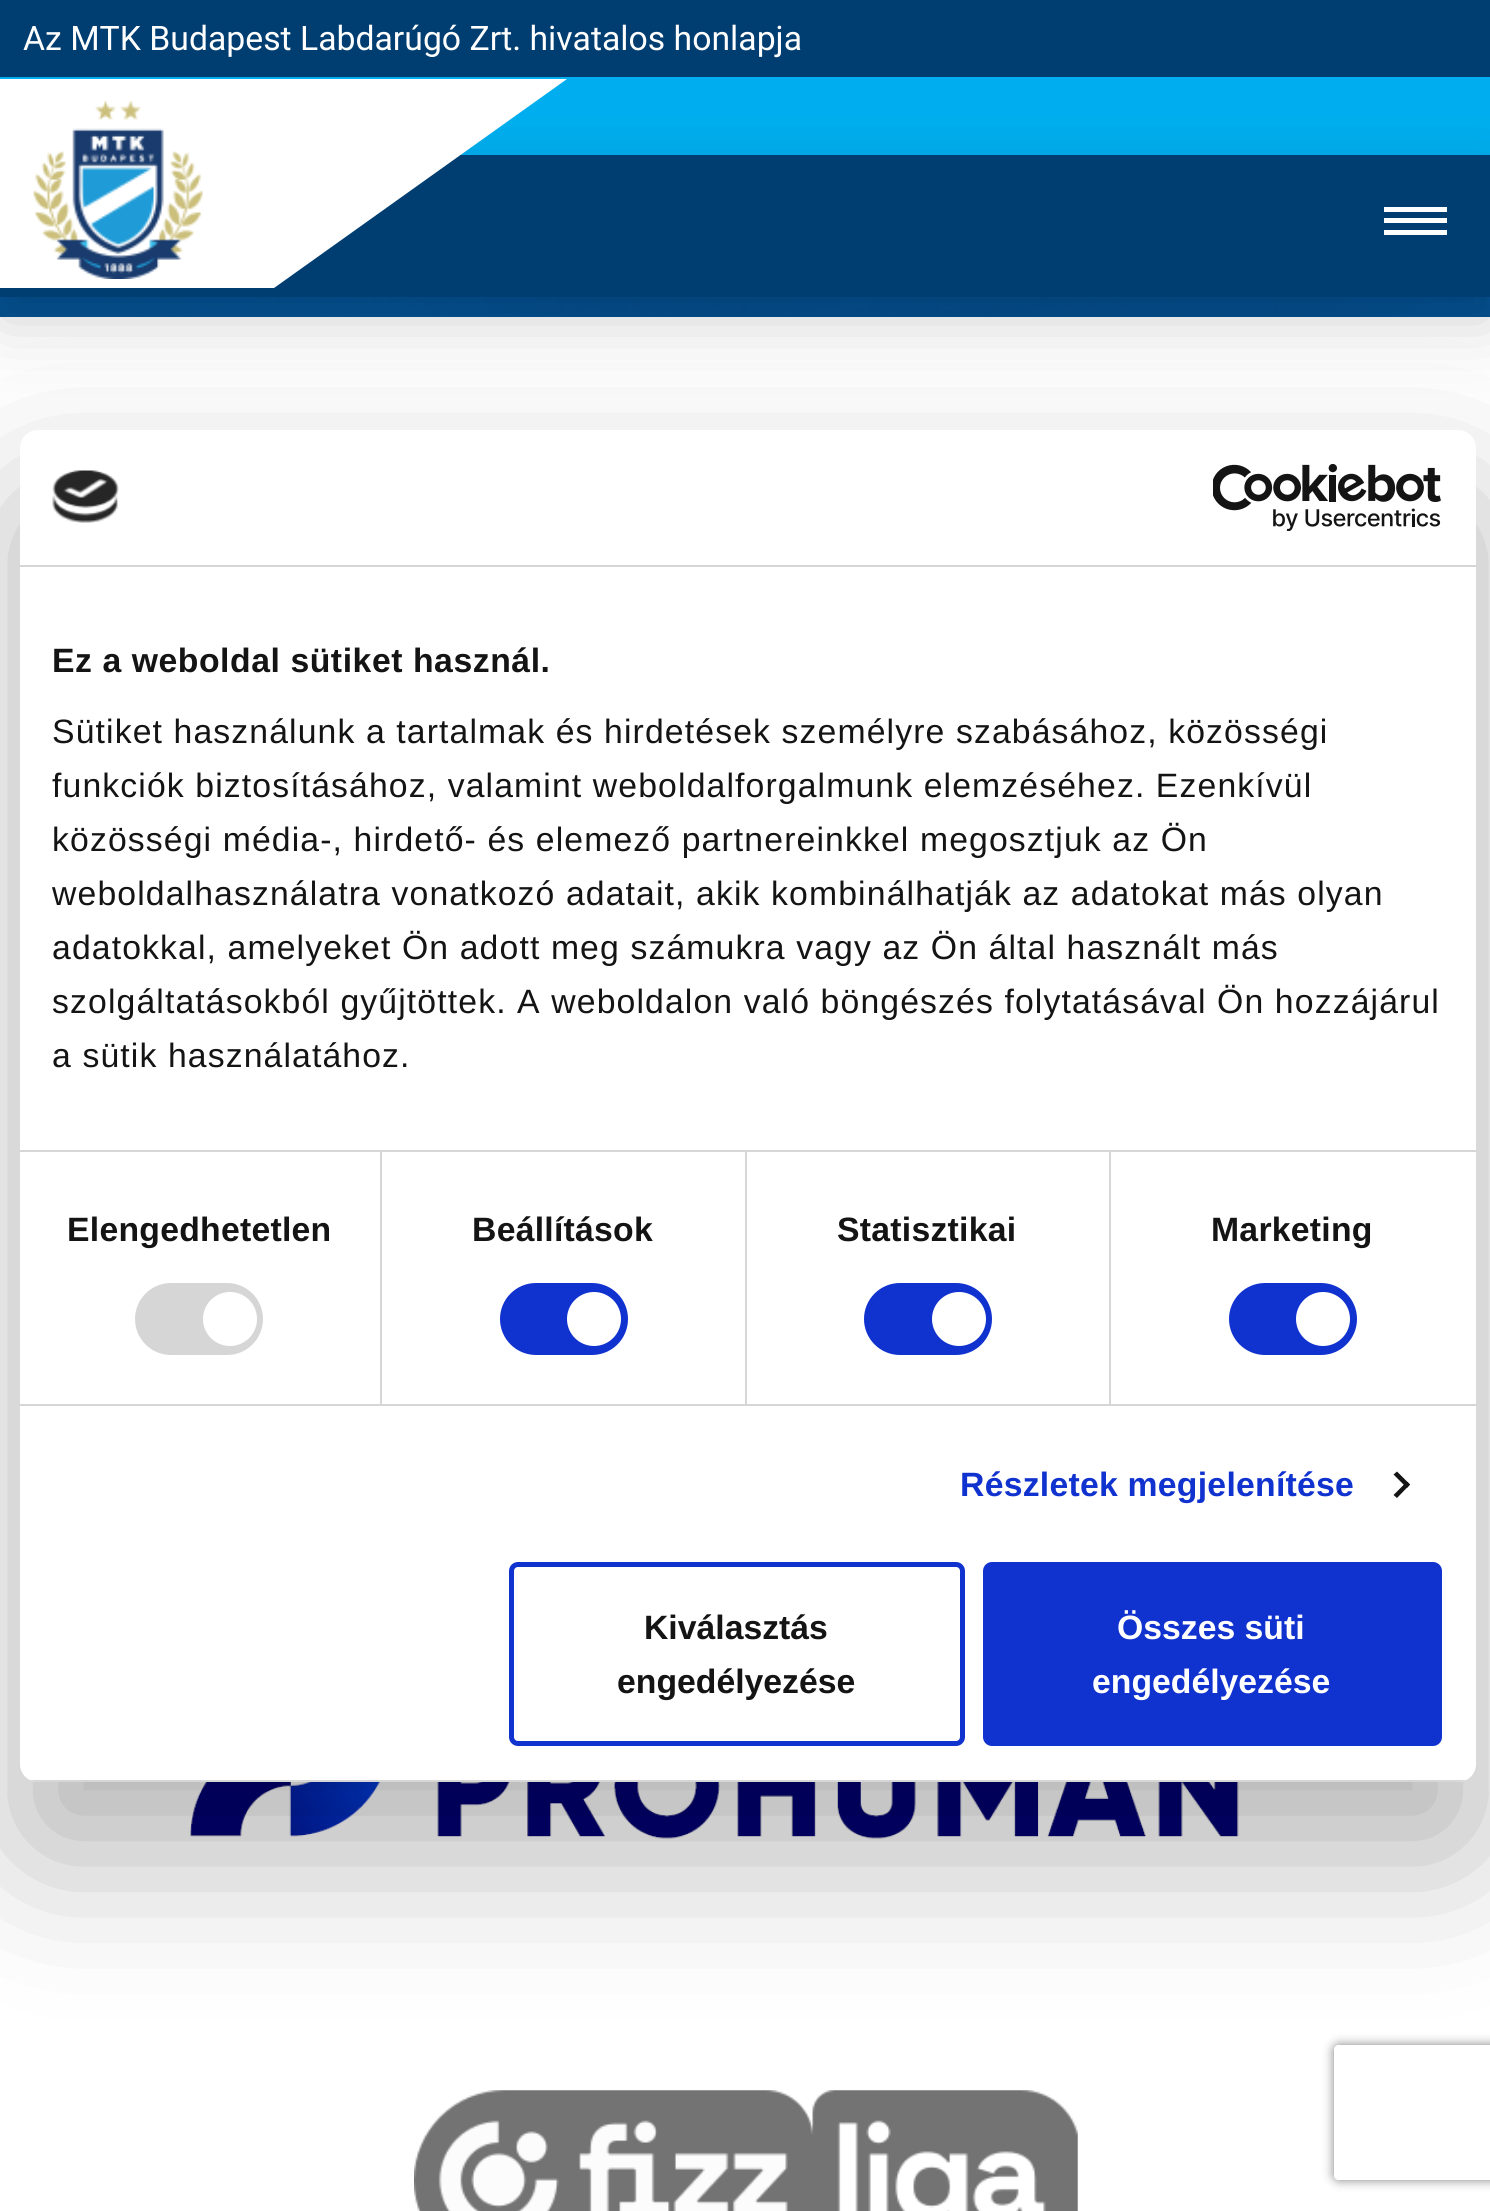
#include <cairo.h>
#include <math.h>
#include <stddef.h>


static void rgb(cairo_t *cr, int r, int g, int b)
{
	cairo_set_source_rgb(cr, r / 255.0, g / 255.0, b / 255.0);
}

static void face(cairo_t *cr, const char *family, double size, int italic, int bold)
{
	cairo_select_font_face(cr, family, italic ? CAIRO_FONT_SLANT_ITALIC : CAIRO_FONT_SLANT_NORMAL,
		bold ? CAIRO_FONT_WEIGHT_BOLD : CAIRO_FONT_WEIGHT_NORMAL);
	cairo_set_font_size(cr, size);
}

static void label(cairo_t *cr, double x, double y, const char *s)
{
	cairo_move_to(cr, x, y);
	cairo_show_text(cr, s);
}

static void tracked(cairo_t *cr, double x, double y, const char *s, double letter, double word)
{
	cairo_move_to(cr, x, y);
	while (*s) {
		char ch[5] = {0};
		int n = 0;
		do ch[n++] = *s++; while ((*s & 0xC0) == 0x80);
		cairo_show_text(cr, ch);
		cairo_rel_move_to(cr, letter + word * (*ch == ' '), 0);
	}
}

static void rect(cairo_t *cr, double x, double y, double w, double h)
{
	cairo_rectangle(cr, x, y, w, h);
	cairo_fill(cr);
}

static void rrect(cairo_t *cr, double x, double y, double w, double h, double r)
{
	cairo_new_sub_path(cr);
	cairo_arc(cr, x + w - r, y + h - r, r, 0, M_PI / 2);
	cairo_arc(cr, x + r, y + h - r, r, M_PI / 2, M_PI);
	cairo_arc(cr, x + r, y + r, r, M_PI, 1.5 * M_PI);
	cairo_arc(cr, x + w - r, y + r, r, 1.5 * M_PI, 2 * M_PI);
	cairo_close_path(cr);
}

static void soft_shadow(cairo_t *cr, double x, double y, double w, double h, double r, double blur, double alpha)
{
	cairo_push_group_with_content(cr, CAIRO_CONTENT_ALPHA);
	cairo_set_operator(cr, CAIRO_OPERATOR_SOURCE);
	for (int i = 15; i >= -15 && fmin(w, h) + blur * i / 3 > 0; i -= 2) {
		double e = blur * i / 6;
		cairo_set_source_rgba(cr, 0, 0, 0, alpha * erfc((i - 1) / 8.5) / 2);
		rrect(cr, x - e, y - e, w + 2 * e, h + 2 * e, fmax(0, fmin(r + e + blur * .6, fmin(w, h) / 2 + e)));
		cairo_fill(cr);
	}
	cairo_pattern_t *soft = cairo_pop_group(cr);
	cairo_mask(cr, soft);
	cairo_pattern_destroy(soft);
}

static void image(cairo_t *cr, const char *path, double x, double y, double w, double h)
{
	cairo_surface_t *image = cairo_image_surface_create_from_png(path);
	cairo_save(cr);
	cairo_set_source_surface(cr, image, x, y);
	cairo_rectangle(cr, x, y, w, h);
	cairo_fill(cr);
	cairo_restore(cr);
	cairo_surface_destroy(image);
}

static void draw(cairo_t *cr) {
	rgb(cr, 255, 255, 255);
	cairo_paint(cr);
	image(cr, "image0.png", 0, 297, 1490, 20);
	rgb(cr, 0, 61, 113);
	rect(cr, 0, 0, 1490, 77);
	face(cr, "Roboto", 33.75, 0, 0);
	rgb(cr, 255, 255, 255);
	label(cr, 23, 50, "Az MTK Budapest Labdarúgó Zrt. hivatalos honlapja");
	rgb(cr, 0, 174, 239);
	rect(cr, 0, 77, 1490, 78);
	rgb(cr, 0, 0, 0);
	soft_shadow(cr, 0, 178, 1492, 142, 0, 34, 0.18);
	rgb(cr, 0, 61, 113);
	rect(cr, 0, 155, 1490, 142);
	rgb(cr, 255, 255, 255);
	rect(cr, 1384, 218, 63, 5);
	rect(cr, 1384, 207, 63, 5);
	rect(cr, 1384, 230, 63, 5);
	cairo_new_path(cr);
	cairo_move_to(cr, 0, 79);
	cairo_line_to(cr, 567, 79);
	cairo_line_to(cr, 274, 288);
	cairo_line_to(cr, 0, 288);
	cairo_close_path(cr);
	cairo_fill(cr);
	image(cr, "image1.png", 33, 101, 170, 178);
	image(cr, "image2.png", 190, 1782, 1049, 57);
	image(cr, "image3.png", 414, 2090, 664, 121);
	cairo_save(cr);
	cairo_set_fill_rule(cr, CAIRO_FILL_RULE_EVEN_ODD);
	cairo_new_path(cr);
	cairo_move_to(cr, 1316, 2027);
	cairo_line_to(cr, 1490, 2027);
	cairo_line_to(cr, 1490, 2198);
	cairo_line_to(cr, 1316, 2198);
	cairo_close_path(cr);
	cairo_move_to(cr, 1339, 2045);
	cairo_line_to(cr, 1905, 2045);
	cairo_curve_to(cr, 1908, 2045, 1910, 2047, 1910, 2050);
	cairo_line_to(cr, 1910, 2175);
	cairo_curve_to(cr, 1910, 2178, 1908, 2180, 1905, 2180);
	cairo_line_to(cr, 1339, 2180);
	cairo_curve_to(cr, 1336, 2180, 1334, 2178, 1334, 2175);
	cairo_line_to(cr, 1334, 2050);
	cairo_curve_to(cr, 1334, 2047, 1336, 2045, 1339, 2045);
	cairo_close_path(cr);
	cairo_clip(cr);
	rgb(cr, 128, 128, 128);
	soft_shadow(cr, 1334, 2045, 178, 135, 5, 5.5, 1);
	cairo_restore(cr);
	rgb(cr, 0, 0, 0);
	soft_shadow(cr, 20, 502, 1456, 1352, 18, 76.5, 0.3);
	rgb(cr, 255, 255, 255);
	rrect(cr, 20, 430, 1456, 1352, 18);
	cairo_fill(cr);
	rgb(cr, 214, 214, 214);
	rect(cr, 20, 565, 1456, 2);
	image(cr, "image4.png", 52, 470, 67, 53);
	image(cr, "image5.png", 1213, 464, 228, 67);
	rect(cr, 20, 1150, 1456, 2);
	face(cr, "Liberation Sans", 33.75, 0, 1);
	rgb(cr, 20, 20, 20);
	tracked(cr, 52, 672, "Ez a weboldal sütiket használ.", 0.55, 0);
	face(cr, "Liberation Sans", 33.75, 0, 0);
	tracked(cr, 52, 743, "Sütiket használunk a tartalmak és hirdetések személyre szabásához, közösségi", 1.12, 0);
	tracked(cr, 52, 797, "funkciók biztosításához, valamint weboldalforgalmunk elemzéséhez. Ezenkívül", 1.12, 0);
	tracked(cr, 52, 851, "közösségi média-, hirdető- és elemező partnereinkkel megosztjuk az Ön", 1.12, 0);
	tracked(cr, 52, 905, "weboldalhasználatra vonatkozó adatait, akik kombinálhatják az adatokat más olyan", 1.12, 0);
	tracked(cr, 52, 959, "adatokkal, amelyeket Ön adott meg számukra vagy az Ön által használt más", 1.12, 0);
	tracked(cr, 52, 1013, "szolgáltatásokból gyűjtöttek. A weboldalon való böngészés folytatásával Ön hozzájárul", 1.12, 0);
	tracked(cr, 52, 1067, "a sütik használatához.", 1.12, 0);
	rgb(cr, 214, 214, 214);
	rect(cr, 20, 1404, 1456, 2);
	rect(cr, 380, 1152, 2, 252);
	face(cr, "Liberation Sans", 33.75, 0, 1);
	rgb(cr, 20, 20, 20);
	tracked(cr, 67, 1241, "Elengedhetetlen", 0.25, 0);
	rgb(cr, 214, 214, 214);
	rrect(cr, 135, 1283, 128, 72, 36);
	cairo_fill(cr);
	rgb(cr, 255, 255, 255);
	cairo_arc(cr, 230, 1319, 27, 0, 2 * M_PI);
	cairo_fill(cr);
	rgb(cr, 214, 214, 214);
	rect(cr, 745, 1152, 2, 252);
	rgb(cr, 20, 20, 20);
	tracked(cr, 472, 1241, "Beállítások", 0.25, 0);
	rgb(cr, 16, 50, 207);
	rrect(cr, 500, 1283, 128, 72, 36);
	cairo_fill(cr);
	rgb(cr, 255, 255, 255);
	cairo_arc(cr, 594, 1319, 27, 0, 2 * M_PI);
	cairo_fill(cr);
	rgb(cr, 214, 214, 214);
	rect(cr, 1109, 1152, 2, 252);
	rgb(cr, 20, 20, 20);
	tracked(cr, 837, 1241, "Statisztikai", 0.25, 0);
	rgb(cr, 16, 50, 207);
	rrect(cr, 864, 1283, 128, 72, 36);
	cairo_fill(cr);
	rgb(cr, 255, 255, 255);
	cairo_arc(cr, 959, 1319, 27, 0, 2 * M_PI);
	cairo_fill(cr);
	rgb(cr, 20, 20, 20);
	tracked(cr, 1211, 1241, "Marketing", 0.25, 0);
	rgb(cr, 16, 50, 207);
	rrect(cr, 1229, 1283, 128, 72, 36);
	cairo_fill(cr);
	rgb(cr, 255, 255, 255);
	cairo_arc(cr, 1323, 1319, 27, 0, 2 * M_PI);
	cairo_fill(cr);
	rgb(cr, 16, 50, 207);
	tracked(cr, 960, 1496, "Részletek megjelenítése", 0.25, 0);
	rgb(cr, 20, 20, 20);
	cairo_new_path(cr);
	cairo_move_to(cr, 1397, 1471.5);
	cairo_line_to(cr, 1410, 1484.5);
	cairo_line_to(cr, 1407, 1488);
	cairo_line_to(cr, 1393.5, 1474.5);
	cairo_close_path(cr);
	cairo_fill(cr);
	cairo_new_path(cr);
	cairo_move_to(cr, 1407, 1481.5);
	cairo_line_to(cr, 1410, 1484.5);
	cairo_line_to(cr, 1397, 1498);
	cairo_line_to(cr, 1393.5, 1495);
	cairo_close_path(cr);
	cairo_fill(cr);
	cairo_save(cr);
	rrect(cr, 20, 430, 1456, 1352, 18);
	cairo_clip(cr);
	rgb(cr, 214, 214, 214);
	rect(cr, 30, 1780, 1436, 2);
	cairo_restore(cr);
	rrect(cr, 511.5, 1564.5, 451, 179, 6.5);
	rgb(cr, 16, 50, 207);
	cairo_set_line_width(cr, 5);
	cairo_stroke(cr);
	rgb(cr, 20, 20, 20);
	label(cr, 644, 1639, "Kiválasztás");
	label(cr, 617, 1693, "engedélyezése");
	rgb(cr, 16, 50, 207);
	rrect(cr, 985.5, 1564.5, 454, 179, 6.5);
	cairo_fill_preserve(cr);
	cairo_stroke(cr);
	rgb(cr, 255, 255, 255);
	label(cr, 1117, 1639, "Összes süti");
	label(cr, 1092, 1693, "engedélyezése");
}

int main(void) {
	cairo_surface_t *surface = cairo_image_surface_create(CAIRO_FORMAT_RGB24, 1490, 2211);
	cairo_t *cr = cairo_create(surface);
	cairo_font_options_t *options = cairo_font_options_create();
	cairo_font_options_set_hint_metrics(options, CAIRO_HINT_METRICS_OFF);
	cairo_font_options_set_hint_style(options, CAIRO_HINT_STYLE_NONE);
	cairo_set_font_options(cr, options);
	cairo_set_miter_limit(cr, 4);
	draw(cr);
	cairo_surface_write_to_png(surface, "render.png");
	cairo_font_options_destroy(options);
	cairo_destroy(cr);
	cairo_surface_destroy(surface);
	return 0;
}
